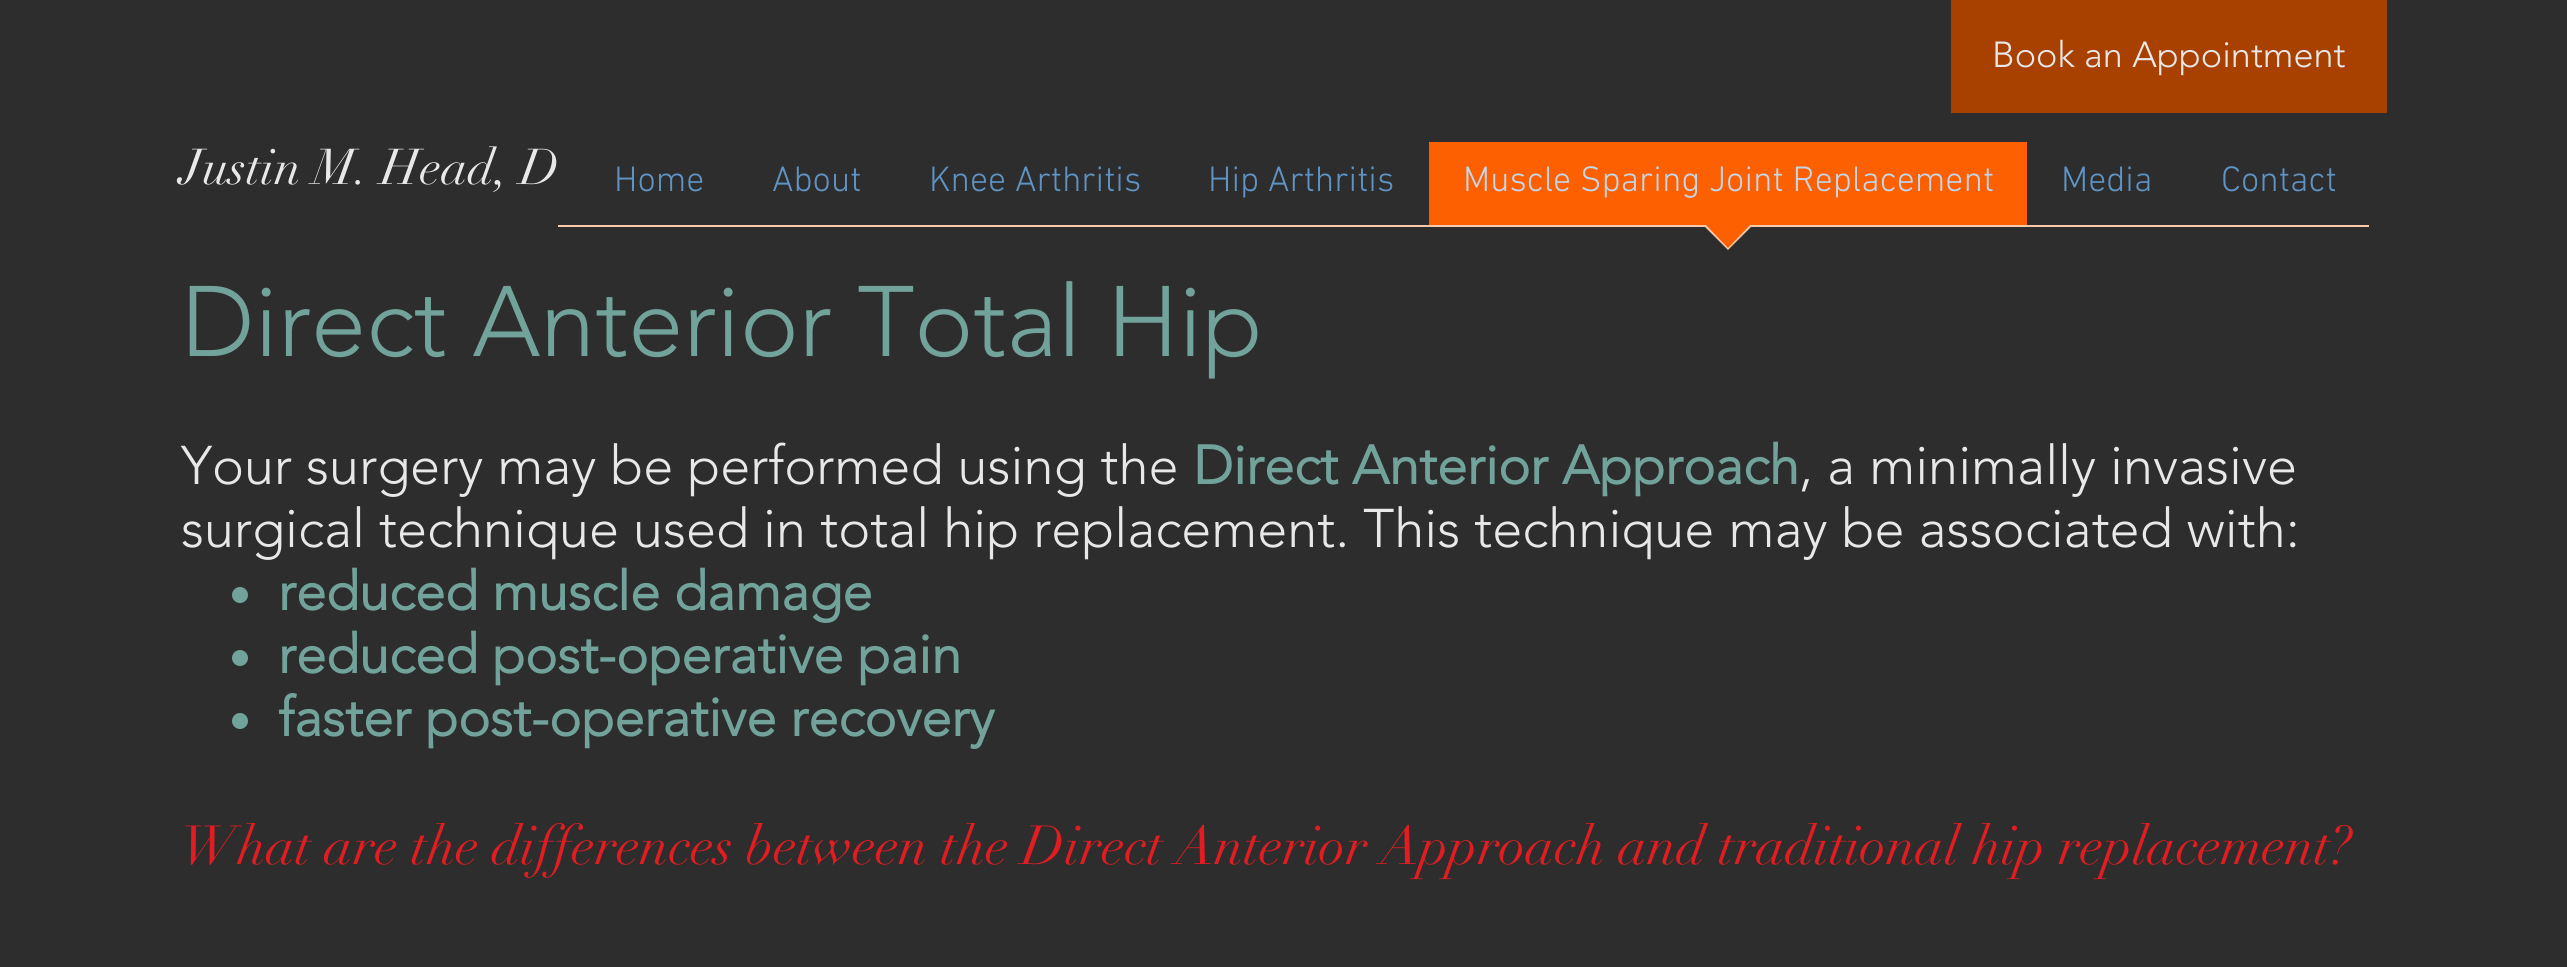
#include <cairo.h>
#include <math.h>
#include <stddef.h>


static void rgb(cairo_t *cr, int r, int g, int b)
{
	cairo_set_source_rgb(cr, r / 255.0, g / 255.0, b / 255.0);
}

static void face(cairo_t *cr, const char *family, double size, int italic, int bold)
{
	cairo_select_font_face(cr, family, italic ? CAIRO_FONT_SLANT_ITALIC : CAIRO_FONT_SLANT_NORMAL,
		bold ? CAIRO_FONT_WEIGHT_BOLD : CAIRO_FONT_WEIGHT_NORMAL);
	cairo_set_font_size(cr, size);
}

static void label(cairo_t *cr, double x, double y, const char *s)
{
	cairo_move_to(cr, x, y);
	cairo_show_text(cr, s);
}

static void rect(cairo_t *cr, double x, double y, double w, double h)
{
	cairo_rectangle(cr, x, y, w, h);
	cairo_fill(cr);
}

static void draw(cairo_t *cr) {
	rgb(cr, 45, 45, 45);
	cairo_paint(cr);
	face(cr, "didot", 49.5, 0, 0);
	rgb(cr, 232, 232, 232);
	label(cr, 180, 184, "Justin M. Head, D");
	rgb(cr, 168, 64, 0);
	rect(cr, 1951, 0, 436, 113);
	face(cr, "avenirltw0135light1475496 Light", 36, 0, 0);
	rgb(cr, 232, 232, 232);
	label(cr, 1992, 67, "Book an Appointment");
	face(cr, "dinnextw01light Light", 36, 0, 0);
	rgb(cr, 94, 147, 196);
	label(cr, 614, 191, "Home");
	label(cr, 772, 191, "About");
	label(cr, 929, 191, "Knee Arthritis");
	label(cr, 1208, 191, "Hip Arthritis");
	rgb(cr, 252, 96, 0);
	rect(cr, 1429, 142, 598, 83);
	rgb(cr, 194, 215, 235);
	label(cr, 1463, 191, "Muscle Sparing Joint Replacement");
	rgb(cr, 254, 201, 169);
	rect(cr, 558, 225, 1811, 2);
	cairo_new_path(cr);
	cairo_move_to(cr, 1703, 225);
	cairo_line_to(cr, 1753, 225);
	cairo_line_to(cr, 1728, 250);
	cairo_close_path(cr);
	cairo_fill(cr);
	rgb(cr, 252, 96, 0);
	cairo_new_path(cr);
	cairo_move_to(cr, 1706, 225);
	cairo_line_to(cr, 1750, 225);
	cairo_line_to(cr, 1728, 248);
	cairo_close_path(cr);
	cairo_fill(cr);
	rgb(cr, 94, 147, 196);
	label(cr, 2061, 191, "Media");
	label(cr, 2221, 191, "Contact");
	face(cr, "avenirltw0135light1475496 Light", 99, 0, 0);
	rgb(cr, 113, 163, 154);
	label(cr, 181, 356, "Direct Anterior Total Hip");
	face(cr, "avenirltw0135light1475496 Light", 54, 0, 0);
	rgb(cr, 232, 232, 232);
	label(cr, 181, 484, "Your surgery may be performed using the");
	face(cr, "avenirltw0135light1475496", 54, 0, 1);
	rgb(cr, 113, 163, 154);
	label(cr, 1193, 484, "Direct Anterior Approach");
	face(cr, "avenirltw0135light1475496 Light", 54, 0, 0);
	rgb(cr, 232, 232, 232);
	label(cr, 1799, 484, ", a minimally invasive");
	label(cr, 181, 547, "surgical technique used in total hip replacement. This technique may be associated with:");
	rgb(cr, 113, 163, 154);
	cairo_new_path(cr);
	cairo_arc(cr, 240, 595, 8, 0, 2 * M_PI);
	cairo_fill(cr);
	face(cr, "avenirltw0135light1475496", 54, 0, 1);
	label(cr, 278, 610, "reduced muscle damage");
	cairo_new_path(cr);
	cairo_arc(cr, 240, 658, 8, 0, 2 * M_PI);
	cairo_fill(cr);
	label(cr, 278, 673, "reduced post-operative pain");
	cairo_new_path(cr);
	cairo_arc(cr, 240, 721, 8, 0, 2 * M_PI);
	cairo_fill(cr);
	label(cr, 278, 736, "faster post-operative recovery");
	face(cr, "didot", 54, 0, 0);
	rgb(cr, 226, 28, 33);
	label(cr, 181, 864, "What are the differences between the Direct Anterior Approach and traditional hip replacement?");
}

int main(void) {
	cairo_surface_t *surface = cairo_image_surface_create(CAIRO_FORMAT_RGB24, 2567, 967);
	cairo_t *cr = cairo_create(surface);
	cairo_font_options_t *options = cairo_font_options_create();
	cairo_font_options_set_hint_metrics(options, CAIRO_HINT_METRICS_OFF);
	cairo_font_options_set_hint_style(options, CAIRO_HINT_STYLE_NONE);
	cairo_set_font_options(cr, options);
	cairo_set_miter_limit(cr, 4);
	draw(cr);
	cairo_surface_write_to_png(surface, "render.png");
	cairo_font_options_destroy(options);
	cairo_destroy(cr);
	cairo_surface_destroy(surface);
	return 0;
}
